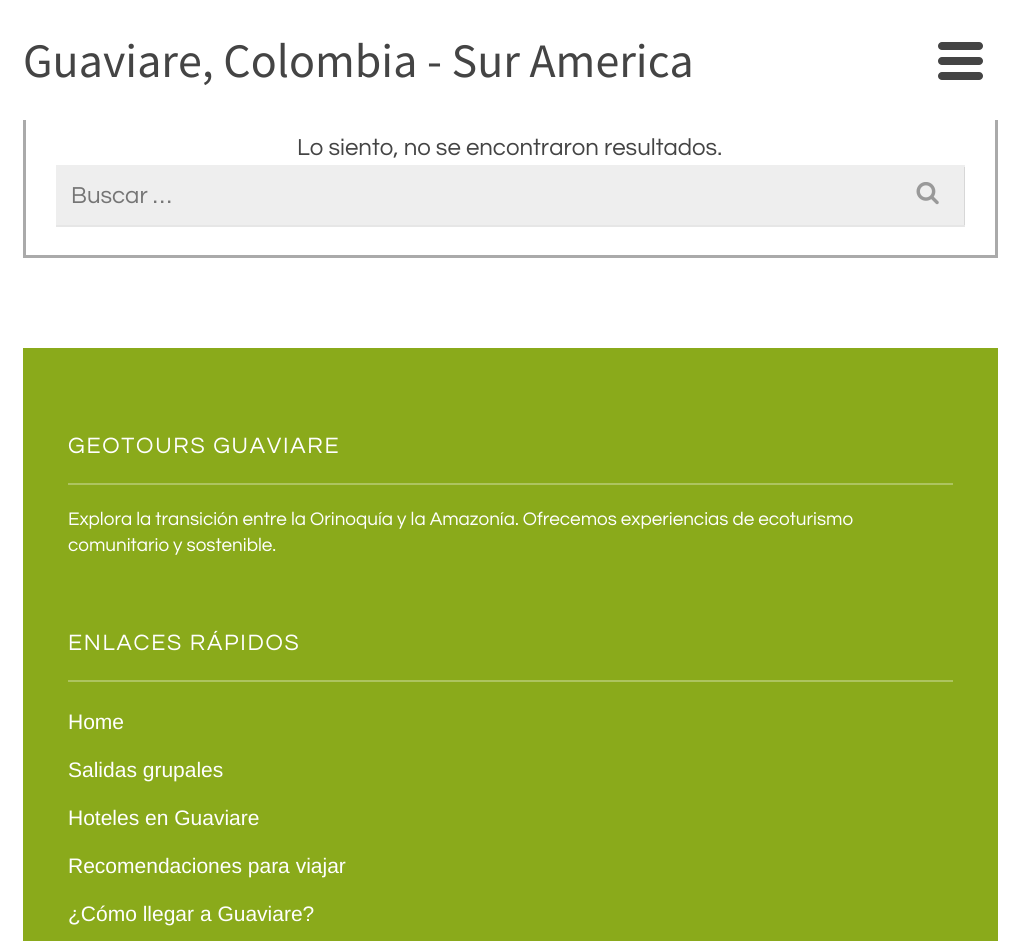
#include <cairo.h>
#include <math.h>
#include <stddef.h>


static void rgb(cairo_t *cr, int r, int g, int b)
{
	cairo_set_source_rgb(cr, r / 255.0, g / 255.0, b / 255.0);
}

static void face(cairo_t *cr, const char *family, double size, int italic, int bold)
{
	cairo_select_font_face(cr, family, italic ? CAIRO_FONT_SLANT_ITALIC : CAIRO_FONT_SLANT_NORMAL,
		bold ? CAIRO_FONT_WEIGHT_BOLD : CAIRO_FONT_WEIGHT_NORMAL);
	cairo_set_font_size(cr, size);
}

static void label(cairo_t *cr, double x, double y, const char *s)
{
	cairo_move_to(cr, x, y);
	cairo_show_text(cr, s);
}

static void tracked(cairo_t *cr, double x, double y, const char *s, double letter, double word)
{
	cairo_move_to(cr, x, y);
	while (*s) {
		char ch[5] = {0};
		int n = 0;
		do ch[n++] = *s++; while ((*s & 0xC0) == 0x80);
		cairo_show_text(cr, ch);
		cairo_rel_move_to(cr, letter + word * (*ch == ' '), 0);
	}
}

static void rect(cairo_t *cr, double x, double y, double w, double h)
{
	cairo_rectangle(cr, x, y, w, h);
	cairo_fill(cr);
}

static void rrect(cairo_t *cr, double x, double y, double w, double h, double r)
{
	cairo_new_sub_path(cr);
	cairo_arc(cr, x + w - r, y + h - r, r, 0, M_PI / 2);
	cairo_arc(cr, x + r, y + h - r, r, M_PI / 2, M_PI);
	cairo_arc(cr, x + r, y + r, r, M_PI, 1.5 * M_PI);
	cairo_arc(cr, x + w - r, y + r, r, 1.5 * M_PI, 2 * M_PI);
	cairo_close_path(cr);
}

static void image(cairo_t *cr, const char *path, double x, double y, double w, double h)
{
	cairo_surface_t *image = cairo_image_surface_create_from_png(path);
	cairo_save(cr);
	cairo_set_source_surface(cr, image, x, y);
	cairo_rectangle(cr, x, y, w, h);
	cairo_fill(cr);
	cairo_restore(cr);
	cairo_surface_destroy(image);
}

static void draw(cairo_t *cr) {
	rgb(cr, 255, 255, 255);
	cairo_paint(cr);
	cairo_rectangle(cr, 24.5, 97.5, 972, 159);
	rgb(cr, 170, 170, 170);
	cairo_set_line_width(cr, 3);
	cairo_stroke(cr);
	rgb(cr, 255, 255, 255);
	rect(cr, 23, 96, 975, 24);
	face(cr, "Source Sans Pro", 48, 0, 0);
	rgb(cr, 68, 68, 68);
	label(cr, 23, 77, "Guaviare, Colombia - Sur America");
	rrect(cr, 938, 42, 45, 8, 4);
	cairo_fill(cr);
	rrect(cr, 938, 57, 45, 8, 4);
	cairo_fill(cr);
	rrect(cr, 938, 72, 45, 8, 4);
	cairo_fill(cr);
	face(cr, "Questrial", 24, 0, 0);
	label(cr, 297, 155, "Lo siento, no se encontraron resultados.");
	rgb(cr, 230, 230, 230);
	cairo_new_path(cr);
	cairo_move_to(cr, 56, 225);
	cairo_line_to(cr, 56, 227);
	cairo_line_to(cr, 965, 227);
	cairo_line_to(cr, 965, 167);
	cairo_line_to(cr, 964, 167);
	cairo_line_to(cr, 964, 225);
	cairo_close_path(cr);
	cairo_fill(cr);
	cairo_set_source_rgba(cr, 0, 0, 0, 0.07);
	rect(cr, 56, 165, 909, 60);
	rgb(cr, 117, 117, 117);
	label(cr, 71, 203, "Buscar …");
	image(cr, "image0.png", 916, 182, 23, 23);
	rgb(cr, 138, 170, 27);
	rect(cr, 23, 348, 975, 593);
	rgb(cr, 173, 196, 95);
	rect(cr, 68, 483, 885, 2);
	face(cr, "Questrial", 23.1, 0, 0);
	rgb(cr, 255, 255, 255);
	tracked(cr, 68, 453, "GEOTOURS GUAVIARE", 1.75, 0);
	face(cr, "Questrial", 18.9, 0, 0);
	label(cr, 68, 525, "Explora la transición entre la Orinoquía y la Amazonía. Ofrecemos experiencias de ecoturismo");
	label(cr, 68, 551, "comunitario y sostenible.");
	rgb(cr, 173, 196, 95);
	rect(cr, 68, 680, 885, 2);
	face(cr, "Questrial", 23.1, 0, 0);
	rgb(cr, 255, 255, 255);
	tracked(cr, 68, 650, "ENLACES RÁPIDOS", 1.75, 0);
	face(cr, "Liberation Sans", 21, 0, 0);
	label(cr, 68, 729, "Home");
	label(cr, 68, 777, "Salidas grupales");
	label(cr, 68, 825, "Hoteles en Guaviare");
	label(cr, 68, 873, "Recomendaciones para viajar");
	label(cr, 68, 921, "¿Cómo llegar a Guaviare?");
}

int main(void) {
	cairo_surface_t *surface = cairo_image_surface_create(CAIRO_FORMAT_RGB24, 1019, 941);
	cairo_t *cr = cairo_create(surface);
	cairo_font_options_t *options = cairo_font_options_create();
	cairo_font_options_set_hint_metrics(options, CAIRO_HINT_METRICS_OFF);
	cairo_font_options_set_hint_style(options, CAIRO_HINT_STYLE_NONE);
	cairo_set_font_options(cr, options);
	cairo_set_miter_limit(cr, 4);
	draw(cr);
	cairo_surface_write_to_png(surface, "render.png");
	cairo_font_options_destroy(options);
	cairo_destroy(cr);
	cairo_surface_destroy(surface);
	return 0;
}
